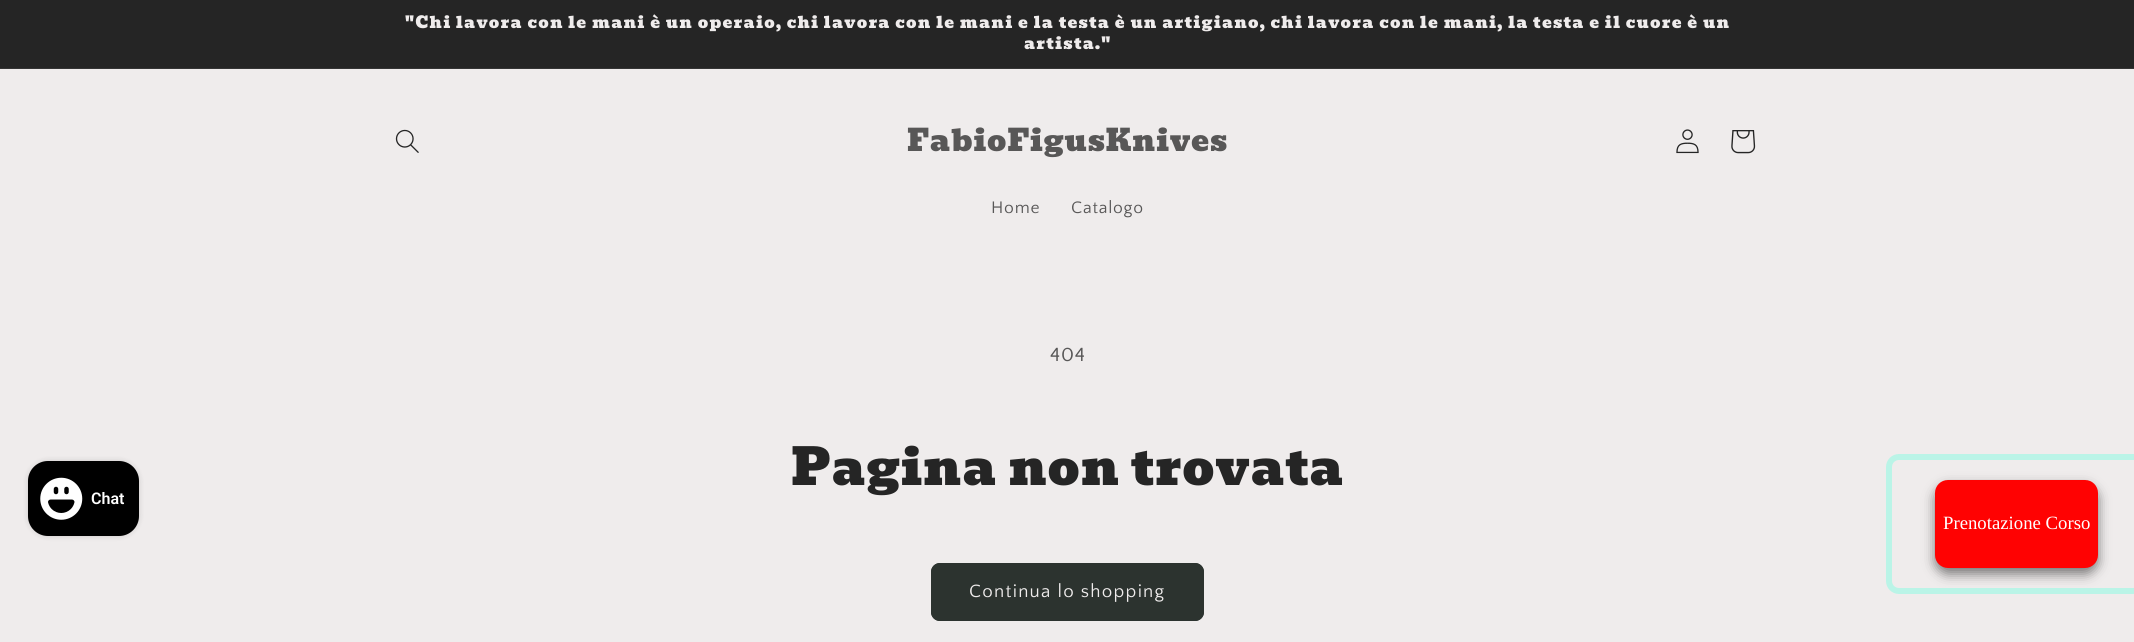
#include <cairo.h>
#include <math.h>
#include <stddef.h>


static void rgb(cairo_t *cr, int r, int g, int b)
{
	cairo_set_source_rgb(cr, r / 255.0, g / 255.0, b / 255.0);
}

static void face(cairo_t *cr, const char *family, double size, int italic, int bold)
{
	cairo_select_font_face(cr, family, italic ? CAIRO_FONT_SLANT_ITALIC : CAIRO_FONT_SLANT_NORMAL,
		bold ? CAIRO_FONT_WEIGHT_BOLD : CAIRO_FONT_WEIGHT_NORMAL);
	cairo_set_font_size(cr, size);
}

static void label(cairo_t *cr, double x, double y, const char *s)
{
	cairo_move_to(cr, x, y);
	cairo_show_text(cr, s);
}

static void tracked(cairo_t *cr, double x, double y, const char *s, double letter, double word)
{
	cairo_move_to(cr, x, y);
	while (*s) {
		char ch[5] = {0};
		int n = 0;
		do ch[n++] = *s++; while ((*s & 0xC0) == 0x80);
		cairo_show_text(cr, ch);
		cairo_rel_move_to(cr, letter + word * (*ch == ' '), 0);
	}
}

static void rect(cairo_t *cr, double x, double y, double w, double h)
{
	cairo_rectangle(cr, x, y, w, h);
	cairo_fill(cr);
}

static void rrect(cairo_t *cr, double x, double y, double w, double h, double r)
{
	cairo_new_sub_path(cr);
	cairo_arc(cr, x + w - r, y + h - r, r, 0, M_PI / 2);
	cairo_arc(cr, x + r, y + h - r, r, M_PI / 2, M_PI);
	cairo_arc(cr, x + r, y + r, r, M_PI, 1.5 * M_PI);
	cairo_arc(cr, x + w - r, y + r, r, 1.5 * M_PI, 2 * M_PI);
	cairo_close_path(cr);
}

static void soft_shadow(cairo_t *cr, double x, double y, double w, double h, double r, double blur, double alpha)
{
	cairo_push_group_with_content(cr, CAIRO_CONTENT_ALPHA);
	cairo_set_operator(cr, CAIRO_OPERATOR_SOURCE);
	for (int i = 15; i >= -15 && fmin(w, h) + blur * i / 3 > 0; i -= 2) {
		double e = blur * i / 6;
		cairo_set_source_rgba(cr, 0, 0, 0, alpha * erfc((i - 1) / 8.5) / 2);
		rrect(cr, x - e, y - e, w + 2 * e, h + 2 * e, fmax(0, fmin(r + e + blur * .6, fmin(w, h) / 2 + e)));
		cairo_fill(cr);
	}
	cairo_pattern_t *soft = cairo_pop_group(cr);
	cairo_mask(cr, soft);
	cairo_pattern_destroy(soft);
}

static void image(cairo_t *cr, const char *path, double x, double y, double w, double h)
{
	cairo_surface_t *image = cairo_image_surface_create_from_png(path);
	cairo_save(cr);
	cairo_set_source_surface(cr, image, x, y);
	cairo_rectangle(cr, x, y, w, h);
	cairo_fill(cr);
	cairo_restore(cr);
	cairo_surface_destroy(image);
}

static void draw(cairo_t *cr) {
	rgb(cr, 239, 236, 236);
	cairo_paint(cr);
	rgb(cr, 37, 37, 37);
	rect(cr, 0, 0, 2134, 68);
	rgb(cr, 53, 53, 53);
	rect(cr, 0, 68, 2134, 1);
	face(cr, "Bevan", 16.25, 0, 0);
	rgb(cr, 239, 236, 236);
	tracked(cr, 405, 28, "\"Chi lavora con le mani è un operaio, chi lavora con le mani e la testa è un artigiano, chi lavora con le mani, la testa e il cuore è un", 1.25, 0);
	tracked(cr, 1024, 49, "artista.\"", 1.25, 0);
	image(cr, "image0.png", 395, 129, 24, 24);
	face(cr, "Bevan", 30, 0, 0);
	rgb(cr, 88, 87, 87);
	tracked(cr, 907, 151, "FabioFigusKnives", 0.75, 0);
	image(cr, "image1.png", 1676, 129, 23, 25);
	image(cr, "image2.png", 1731, 130, 25, 24);
	face(cr, "Quattrocento Sans", 17.5, 0, 0);
	tracked(cr, 991, 213, "Home", 0.75, 0);
	tracked(cr, 1071, 213, "Catalogo", 0.75, 0);
	rgb(cr, 0, 0, 0);
	soft_shadow(cr, 28, 461, 111, 75, 20, 3, 0.15);
	rgb(cr, 0, 0, 0);
	rrect(cr, 28, 461, 111, 75, 20);
	cairo_fill(cr);
	image(cr, "image3.png", 40, 477, 43, 43);
	face(cr, "Roboto SemiBold", 16, 0, 0);
	rgb(cr, 255, 255, 255);
	label(cr, 91, 504, "Chat");
	face(cr, "Quattrocento Sans", 20, 0, 0);
	rgb(cr, 88, 87, 87);
	tracked(cr, 1050, 361, "404", 0.75, 0);
	face(cr, "Bevan", 50, 0, 0);
	rgb(cr, 37, 37, 37);
	tracked(cr, 791, 485, "Pagina non trovata", 0.75, 0);
	rgb(cr, 44, 51, 47);
	rrect(cr, 931, 563, 273, 58, 9);
	cairo_fill(cr);
	rrect(cr, 931.5, 563.5, 272, 57, 8.5);
	cairo_set_line_width(cr, 1);
	cairo_stroke(cr);
	face(cr, "Quattrocento Sans", 18.75, 0, 0);
	rgb(cr, 239, 236, 236);
	tracked(cr, 969, 597, "Continua lo shopping", 1.25, 0);
	rgb(cr, 0, 0, 0);
	soft_shadow(cr, 1935, 486, 163, 88, 13, 6, 0.5);
	rgb(cr, 255, 2, 2);
	rrect(cr, 1935, 480, 163, 88, 13);
	cairo_fill(cr);
	rrect(cr, 1889, 457, 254, 134, 10);
	rgb(cr, 186, 244, 231);
	cairo_set_line_width(cr, 6);
	cairo_stroke(cr);
	face(cr, "Liberation Serif", 18.75, 0, 0);
	rgb(cr, 255, 255, 255);
	label(cr, 1943, 529, "Prenotazione Corso");
}

int main(void) {
	cairo_surface_t *surface = cairo_image_surface_create(CAIRO_FORMAT_RGB24, 2134, 642);
	cairo_t *cr = cairo_create(surface);
	cairo_font_options_t *options = cairo_font_options_create();
	cairo_font_options_set_hint_metrics(options, CAIRO_HINT_METRICS_OFF);
	cairo_font_options_set_hint_style(options, CAIRO_HINT_STYLE_NONE);
	cairo_set_font_options(cr, options);
	cairo_set_miter_limit(cr, 4);
	draw(cr);
	cairo_surface_write_to_png(surface, "render.png");
	cairo_font_options_destroy(options);
	cairo_destroy(cr);
	cairo_surface_destroy(surface);
	return 0;
}
